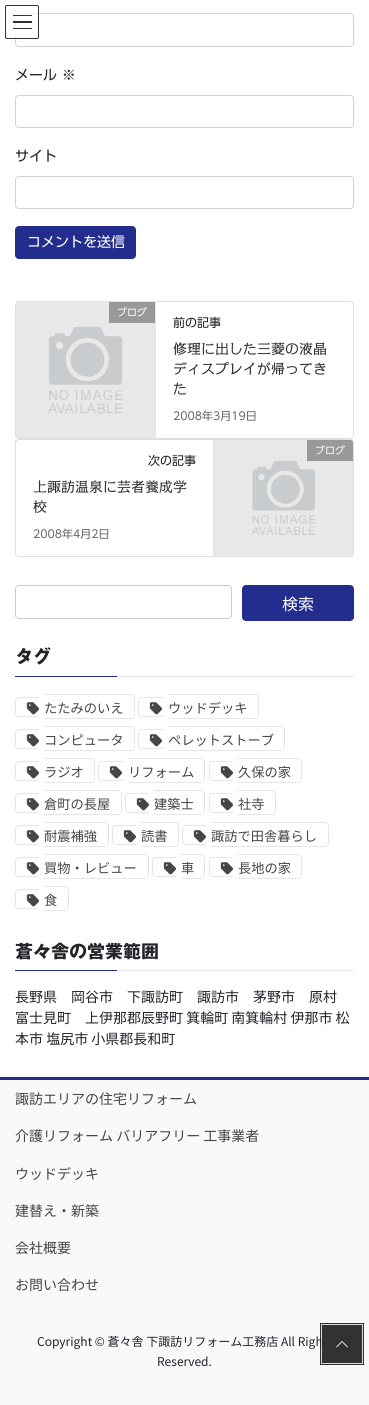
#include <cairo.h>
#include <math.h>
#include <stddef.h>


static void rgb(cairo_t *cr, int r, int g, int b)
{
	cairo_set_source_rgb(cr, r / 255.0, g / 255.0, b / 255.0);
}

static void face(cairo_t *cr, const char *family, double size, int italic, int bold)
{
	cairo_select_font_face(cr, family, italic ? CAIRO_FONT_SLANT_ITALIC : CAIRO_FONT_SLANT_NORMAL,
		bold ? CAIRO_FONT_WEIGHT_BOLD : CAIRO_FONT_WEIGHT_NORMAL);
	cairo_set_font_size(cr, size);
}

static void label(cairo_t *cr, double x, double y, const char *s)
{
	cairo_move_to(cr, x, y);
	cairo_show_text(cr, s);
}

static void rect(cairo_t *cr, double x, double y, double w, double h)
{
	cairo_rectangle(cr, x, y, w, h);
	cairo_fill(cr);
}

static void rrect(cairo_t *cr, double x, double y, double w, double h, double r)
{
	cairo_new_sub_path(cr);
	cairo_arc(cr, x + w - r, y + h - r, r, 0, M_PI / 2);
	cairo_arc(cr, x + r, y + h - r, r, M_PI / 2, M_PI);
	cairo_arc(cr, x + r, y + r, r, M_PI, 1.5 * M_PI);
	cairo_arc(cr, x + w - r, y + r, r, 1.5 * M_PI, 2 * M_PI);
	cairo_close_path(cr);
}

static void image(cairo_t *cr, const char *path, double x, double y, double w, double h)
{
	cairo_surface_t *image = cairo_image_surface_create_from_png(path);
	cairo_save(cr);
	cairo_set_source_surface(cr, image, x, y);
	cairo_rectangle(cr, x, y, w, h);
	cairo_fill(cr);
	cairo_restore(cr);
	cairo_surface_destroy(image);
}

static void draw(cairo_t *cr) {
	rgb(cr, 255, 255, 255);
	cairo_paint(cr);
	rrect(cr, 15.5, 13.5, 338, 33, 3.5);
	rgb(cr, 206, 212, 218);
	cairo_set_line_width(cr, 1);
	cairo_stroke(cr);
	cairo_set_source_rgba(cr, 1, 1, 1, 0.8);
	rrect(cr, 5, 5, 34, 34, 2);
	cairo_fill(cr);
	cairo_set_source_rgba(cr, 0, 0, 0, 0.8);
	rect(cr, 13, 15, 19, 1);
	rect(cr, 13, 21, 19, 2);
	rect(cr, 13, 28, 19, 1);
	rrect(cr, 5.5, 5.5, 33, 33, 1.5);
	rgb(cr, 51, 51, 51);
	cairo_stroke(cr);
	face(cr, "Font", 14, 0, 0);
	rgb(cr, 33, 37, 41);
	label(cr, 15, 80, "メール ※");
	rrect(cr, 15.5, 95.5, 338, 32, 3.5);
	rgb(cr, 206, 212, 218);
	cairo_stroke(cr);
	rgb(cr, 33, 37, 41);
	label(cr, 15, 161, "サイト");
	rrect(cr, 15.5, 176.5, 338, 32, 3.5);
	rgb(cr, 206, 212, 218);
	cairo_stroke(cr);
	rgb(cr, 34, 45, 142);
	rrect(cr, 15.5, 226.5, 120, 32, 3.5);
	cairo_fill_preserve(cr);
	cairo_stroke(cr);
	rgb(cr, 255, 255, 255);
	label(cr, 27, 247, "コメントを送信");
	rrect(cr, 15.5, 301.5, 338, 137, 3.5);
	rgb(cr, 223, 223, 223);
	cairo_stroke(cr);
	image(cr, "image0.png", 16, 302, 139, 136);
	rgb(cr, 229, 229, 229);
	rect(cr, 155, 302, 1, 136);
	rgb(cr, 153, 153, 153);
	rect(cr, 109, 302, 46, 21);
	face(cr, "Font", 10, 0, 0);
	rgb(cr, 255, 255, 255);
	label(cr, 117, 316, "ブログ");
	face(cr, "Font", 12, 0, 0);
	rgb(cr, 33, 37, 41);
	label(cr, 173, 327, "前の記事");
	face(cr, "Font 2", 14, 0, 0);
	rgb(cr, 51, 51, 51);
	label(cr, 173, 354, "修理に出した三菱の液晶");
	label(cr, 173, 374, "ディスプレイが帰ってき");
	label(cr, 173, 394, "た");
	face(cr, "Font", 11, 0, 0);
	rgb(cr, 102, 102, 102);
	label(cr, 173, 420, "2008年3月19日");
	rrect(cr, 15.5, 439.5, 338, 117, 3.5);
	rgb(cr, 223, 223, 223);
	cairo_stroke(cr);
	image(cr, "image1.png", 214, 440, 139, 116);
	rgb(cr, 229, 229, 229);
	rect(cr, 213, 440, 1, 116);
	rgb(cr, 153, 153, 153);
	cairo_new_path(cr);
	cairo_move_to(cr, 307, 440);
	cairo_line_to(cr, 350.5, 440);
	cairo_curve_to(cr, 352, 440, 353, 441, 353, 442.5);
	cairo_line_to(cr, 353, 461);
	cairo_line_to(cr, 307, 461);
	cairo_close_path(cr);
	cairo_fill(cr);
	face(cr, "Font", 10, 0, 0);
	rgb(cr, 255, 255, 255);
	label(cr, 315, 454, "ブログ");
	face(cr, "Font", 12, 0, 0);
	rgb(cr, 33, 37, 41);
	label(cr, 148, 465, "次の記事");
	face(cr, "Font 2", 14, 0, 0);
	rgb(cr, 51, 51, 51);
	label(cr, 33, 492, "上諏訪温泉に芸者養成学");
	label(cr, 33, 512, "校");
	face(cr, "Font", 11, 0, 0);
	rgb(cr, 102, 102, 102);
	label(cr, 33, 538, "2008年4月2日");
	rrect(cr, 15.5, 585.5, 216, 33, 3.5);
	rgb(cr, 204, 204, 204);
	cairo_stroke(cr);
	rgb(cr, 34, 45, 142);
	rrect(cr, 242, 585, 112, 36, 4);
	cairo_fill(cr);
	face(cr, "Noto Sans JP", 16, 0, 0);
	rgb(cr, 255, 255, 255);
	label(cr, 282, 610, "検索");
	rgb(cr, 230, 230, 230);
	rect(cr, 117, 676, 237, 1);
	face(cr, "Font", 18, 0, 1);
	rgb(cr, 33, 37, 41);
	label(cr, 15, 663, "タグ");
	rgb(cr, 34, 45, 142);
	rect(cr, 15, 676, 102, 1);
	rgb(cr, 230, 230, 230);
	cairo_set_fill_rule(cr, CAIRO_FILL_RULE_EVEN_ODD);
	cairo_new_path(cr);
	cairo_move_to(cr, 19, 697);
	cairo_line_to(cr, 39, 697);
	cairo_line_to(cr, 39, 717);
	cairo_line_to(cr, 19, 717);
	cairo_curve_to(cr, 17, 717, 15, 715, 15, 713);
	cairo_line_to(cr, 15, 701);
	cairo_curve_to(cr, 15, 699, 17, 697, 19, 697);
	cairo_close_path(cr);
	cairo_move_to(cr, 19, 698);
	cairo_line_to(cr, 39, 698);
	cairo_line_to(cr, 39, 716);
	cairo_line_to(cr, 19, 716);
	cairo_curve_to(cr, 17.5, 716, 16, 714.5, 16, 713);
	cairo_line_to(cr, 16, 701);
	cairo_curve_to(cr, 16, 699.5, 17.5, 698, 19, 698);
	cairo_close_path(cr);
	cairo_fill(cr);
	image(cr, "image2.png", 26, 702, 13, 13);
	cairo_new_path(cr);
	cairo_move_to(cr, 44, 694);
	cairo_line_to(cr, 131, 694);
	cairo_curve_to(cr, 133, 694, 135, 696, 135, 698);
	cairo_line_to(cr, 135, 715);
	cairo_curve_to(cr, 135, 717, 133, 719, 131, 719);
	cairo_line_to(cr, 44, 719);
	cairo_close_path(cr);
	cairo_move_to(cr, 44, 695);
	cairo_line_to(cr, 131, 695);
	cairo_curve_to(cr, 133, 695, 134, 696, 134, 698);
	cairo_line_to(cr, 134, 715);
	cairo_curve_to(cr, 134, 717, 133, 718, 131, 718);
	cairo_line_to(cr, 44, 718);
	cairo_close_path(cr);
	cairo_fill(cr);
	face(cr, "Noto Sans JP", 13.25, 0, 0);
	rgb(cr, 70, 70, 70);
	label(cr, 44, 713, "たたみのいえ");
	rgb(cr, 230, 230, 230);
	cairo_new_path(cr);
	cairo_move_to(cr, 142, 697);
	cairo_line_to(cr, 163, 697);
	cairo_line_to(cr, 163, 717);
	cairo_line_to(cr, 142, 717);
	cairo_curve_to(cr, 140, 717, 138, 715, 138, 713);
	cairo_line_to(cr, 138, 701);
	cairo_curve_to(cr, 138, 699, 140, 697, 142, 697);
	cairo_close_path(cr);
	cairo_move_to(cr, 142, 698);
	cairo_line_to(cr, 163, 698);
	cairo_line_to(cr, 163, 716);
	cairo_line_to(cr, 142, 716);
	cairo_curve_to(cr, 140.5, 716, 139, 714.5, 139, 713);
	cairo_line_to(cr, 139, 701);
	cairo_curve_to(cr, 139, 699.5, 140.5, 698, 142, 698);
	cairo_close_path(cr);
	cairo_fill(cr);
	image(cr, "image2.png", 149, 702, 13, 13);
	cairo_new_path(cr);
	cairo_move_to(cr, 168, 694);
	cairo_line_to(cr, 255, 694);
	cairo_curve_to(cr, 257, 694, 259, 696, 259, 698);
	cairo_line_to(cr, 259, 715);
	cairo_curve_to(cr, 259, 717, 257, 719, 255, 719);
	cairo_line_to(cr, 168, 719);
	cairo_close_path(cr);
	cairo_move_to(cr, 168, 695);
	cairo_line_to(cr, 255, 695);
	cairo_curve_to(cr, 257, 695, 258, 696, 258, 698);
	cairo_line_to(cr, 258, 715);
	cairo_curve_to(cr, 258, 717, 257, 718, 255, 718);
	cairo_line_to(cr, 168, 718);
	cairo_close_path(cr);
	cairo_fill(cr);
	rgb(cr, 70, 70, 70);
	label(cr, 168, 713, "ウッドデッキ");
	rgb(cr, 230, 230, 230);
	cairo_new_path(cr);
	cairo_move_to(cr, 19, 729);
	cairo_line_to(cr, 39, 729);
	cairo_line_to(cr, 39, 749);
	cairo_line_to(cr, 19, 749);
	cairo_curve_to(cr, 17, 749, 15, 747, 15, 745);
	cairo_line_to(cr, 15, 733);
	cairo_curve_to(cr, 15, 731, 17, 729, 19, 729);
	cairo_close_path(cr);
	cairo_move_to(cr, 19, 730);
	cairo_line_to(cr, 39, 730);
	cairo_line_to(cr, 39, 748);
	cairo_line_to(cr, 19, 748);
	cairo_curve_to(cr, 17.5, 748, 16, 746.5, 16, 745);
	cairo_line_to(cr, 16, 733);
	cairo_curve_to(cr, 16, 731.5, 17.5, 730, 19, 730);
	cairo_close_path(cr);
	cairo_fill(cr);
	image(cr, "image2.png", 26, 734, 13, 13);
	cairo_new_path(cr);
	cairo_move_to(cr, 44, 726);
	cairo_line_to(cr, 131, 726);
	cairo_curve_to(cr, 133, 726, 135, 728, 135, 730);
	cairo_line_to(cr, 135, 747);
	cairo_curve_to(cr, 135, 749, 133, 751, 131, 751);
	cairo_line_to(cr, 44, 751);
	cairo_close_path(cr);
	cairo_move_to(cr, 44, 727);
	cairo_line_to(cr, 131, 727);
	cairo_curve_to(cr, 133, 727, 134, 728, 134, 730);
	cairo_line_to(cr, 134, 747);
	cairo_curve_to(cr, 134, 749, 133, 750, 131, 750);
	cairo_line_to(cr, 44, 750);
	cairo_close_path(cr);
	cairo_fill(cr);
	rgb(cr, 70, 70, 70);
	label(cr, 44, 745, "コンピュータ");
	rgb(cr, 230, 230, 230);
	cairo_new_path(cr);
	cairo_move_to(cr, 142, 729);
	cairo_line_to(cr, 163, 729);
	cairo_line_to(cr, 163, 749);
	cairo_line_to(cr, 142, 749);
	cairo_curve_to(cr, 140, 749, 138, 747, 138, 745);
	cairo_line_to(cr, 138, 733);
	cairo_curve_to(cr, 138, 731, 140, 729, 142, 729);
	cairo_close_path(cr);
	cairo_move_to(cr, 142, 730);
	cairo_line_to(cr, 163, 730);
	cairo_line_to(cr, 163, 748);
	cairo_line_to(cr, 142, 748);
	cairo_curve_to(cr, 140.5, 748, 139, 746.5, 139, 745);
	cairo_line_to(cr, 139, 733);
	cairo_curve_to(cr, 139, 731.5, 140.5, 730, 142, 730);
	cairo_close_path(cr);
	cairo_fill(cr);
	image(cr, "image2.png", 149, 734, 13, 13);
	cairo_new_path(cr);
	cairo_move_to(cr, 168, 726);
	cairo_line_to(cr, 281, 726);
	cairo_curve_to(cr, 283, 726, 285, 728, 285, 730);
	cairo_line_to(cr, 285, 747);
	cairo_curve_to(cr, 285, 749, 283, 751, 281, 751);
	cairo_line_to(cr, 168, 751);
	cairo_close_path(cr);
	cairo_move_to(cr, 168, 727);
	cairo_line_to(cr, 281, 727);
	cairo_curve_to(cr, 283, 727, 284, 728, 284, 730);
	cairo_line_to(cr, 284, 747);
	cairo_curve_to(cr, 284, 749, 283, 750, 281, 750);
	cairo_line_to(cr, 168, 750);
	cairo_close_path(cr);
	cairo_fill(cr);
	rgb(cr, 70, 70, 70);
	label(cr, 168, 745, "ペレットストーブ");
	rgb(cr, 230, 230, 230);
	cairo_new_path(cr);
	cairo_move_to(cr, 19, 761);
	cairo_line_to(cr, 39, 761);
	cairo_line_to(cr, 39, 781);
	cairo_line_to(cr, 19, 781);
	cairo_curve_to(cr, 17, 781, 15, 779, 15, 777);
	cairo_line_to(cr, 15, 765);
	cairo_curve_to(cr, 15, 763, 17, 761, 19, 761);
	cairo_close_path(cr);
	cairo_move_to(cr, 19, 762);
	cairo_line_to(cr, 39, 762);
	cairo_line_to(cr, 39, 780);
	cairo_line_to(cr, 19, 780);
	cairo_curve_to(cr, 17.5, 780, 16, 778.5, 16, 777);
	cairo_line_to(cr, 16, 765);
	cairo_curve_to(cr, 16, 763.5, 17.5, 762, 19, 762);
	cairo_close_path(cr);
	cairo_fill(cr);
	image(cr, "image2.png", 26, 766, 13, 13);
	cairo_new_path(cr);
	cairo_move_to(cr, 44, 758);
	cairo_line_to(cr, 91, 758);
	cairo_curve_to(cr, 93, 758, 95, 760, 95, 762);
	cairo_line_to(cr, 95, 779);
	cairo_curve_to(cr, 95, 781, 93, 783, 91, 783);
	cairo_line_to(cr, 44, 783);
	cairo_close_path(cr);
	cairo_move_to(cr, 44, 759);
	cairo_line_to(cr, 91, 759);
	cairo_curve_to(cr, 93, 759, 94, 760, 94, 762);
	cairo_line_to(cr, 94, 779);
	cairo_curve_to(cr, 94, 781, 93, 782, 91, 782);
	cairo_line_to(cr, 44, 782);
	cairo_close_path(cr);
	cairo_fill(cr);
	rgb(cr, 70, 70, 70);
	label(cr, 44, 777, "ラジオ");
	rgb(cr, 230, 230, 230);
	cairo_new_path(cr);
	cairo_move_to(cr, 102, 761);
	cairo_line_to(cr, 123, 761);
	cairo_line_to(cr, 123, 781);
	cairo_line_to(cr, 102, 781);
	cairo_curve_to(cr, 100, 781, 98, 779, 98, 777);
	cairo_line_to(cr, 98, 765);
	cairo_curve_to(cr, 98, 763, 100, 761, 102, 761);
	cairo_close_path(cr);
	cairo_move_to(cr, 102, 762);
	cairo_line_to(cr, 123, 762);
	cairo_line_to(cr, 123, 780);
	cairo_line_to(cr, 102, 780);
	cairo_curve_to(cr, 100.5, 780, 99, 778.5, 99, 777);
	cairo_line_to(cr, 99, 765);
	cairo_curve_to(cr, 99, 763.5, 100.5, 762, 102, 762);
	cairo_close_path(cr);
	cairo_fill(cr);
	image(cr, "image2.png", 109, 766, 13, 13);
	cairo_new_path(cr);
	cairo_move_to(cr, 128, 758);
	cairo_line_to(cr, 201, 758);
	cairo_curve_to(cr, 203, 758, 205, 760, 205, 762);
	cairo_line_to(cr, 205, 779);
	cairo_curve_to(cr, 205, 781, 203, 783, 201, 783);
	cairo_line_to(cr, 128, 783);
	cairo_close_path(cr);
	cairo_move_to(cr, 128, 759);
	cairo_line_to(cr, 201, 759);
	cairo_curve_to(cr, 203, 759, 204, 760, 204, 762);
	cairo_line_to(cr, 204, 779);
	cairo_curve_to(cr, 204, 781, 203, 782, 201, 782);
	cairo_line_to(cr, 128, 782);
	cairo_close_path(cr);
	cairo_fill(cr);
	rgb(cr, 70, 70, 70);
	label(cr, 128, 777, "リフォーム");
	rgb(cr, 230, 230, 230);
	cairo_new_path(cr);
	cairo_move_to(cr, 213, 761);
	cairo_line_to(cr, 233, 761);
	cairo_line_to(cr, 233, 781);
	cairo_line_to(cr, 213, 781);
	cairo_curve_to(cr, 211, 781, 209, 779, 209, 777);
	cairo_line_to(cr, 209, 765);
	cairo_curve_to(cr, 209, 763, 211, 761, 213, 761);
	cairo_close_path(cr);
	cairo_move_to(cr, 213, 762);
	cairo_line_to(cr, 233, 762);
	cairo_line_to(cr, 233, 780);
	cairo_line_to(cr, 213, 780);
	cairo_curve_to(cr, 211.5, 780, 210, 778.5, 210, 777);
	cairo_line_to(cr, 210, 765);
	cairo_curve_to(cr, 210, 763.5, 211.5, 762, 213, 762);
	cairo_close_path(cr);
	cairo_fill(cr);
	image(cr, "image2.png", 220, 766, 13, 13);
	cairo_new_path(cr);
	cairo_move_to(cr, 238, 758);
	cairo_line_to(cr, 298, 758);
	cairo_curve_to(cr, 300, 758, 302, 760, 302, 762);
	cairo_line_to(cr, 302, 779);
	cairo_curve_to(cr, 302, 781, 300, 783, 298, 783);
	cairo_line_to(cr, 238, 783);
	cairo_close_path(cr);
	cairo_move_to(cr, 238, 759);
	cairo_line_to(cr, 298, 759);
	cairo_curve_to(cr, 300, 759, 301, 760, 301, 762);
	cairo_line_to(cr, 301, 779);
	cairo_curve_to(cr, 301, 781, 300, 782, 298, 782);
	cairo_line_to(cr, 238, 782);
	cairo_close_path(cr);
	cairo_fill(cr);
	rgb(cr, 70, 70, 70);
	label(cr, 238, 777, "久保の家");
	rgb(cr, 230, 230, 230);
	cairo_new_path(cr);
	cairo_move_to(cr, 19, 793);
	cairo_line_to(cr, 39, 793);
	cairo_line_to(cr, 39, 813);
	cairo_line_to(cr, 19, 813);
	cairo_curve_to(cr, 17, 813, 15, 811, 15, 809);
	cairo_line_to(cr, 15, 797);
	cairo_curve_to(cr, 15, 795, 17, 793, 19, 793);
	cairo_close_path(cr);
	cairo_move_to(cr, 19, 794);
	cairo_line_to(cr, 39, 794);
	cairo_line_to(cr, 39, 812);
	cairo_line_to(cr, 19, 812);
	cairo_curve_to(cr, 17.5, 812, 16, 810.5, 16, 809);
	cairo_line_to(cr, 16, 797);
	cairo_curve_to(cr, 16, 795.5, 17.5, 794, 19, 794);
	cairo_close_path(cr);
	cairo_fill(cr);
	image(cr, "image2.png", 26, 798, 13, 13);
	cairo_new_path(cr);
	cairo_move_to(cr, 44, 790);
	cairo_line_to(cr, 118, 790);
	cairo_curve_to(cr, 120, 790, 122, 792, 122, 794);
	cairo_line_to(cr, 122, 811);
	cairo_curve_to(cr, 122, 813, 120, 815, 118, 815);
	cairo_line_to(cr, 44, 815);
	cairo_close_path(cr);
	cairo_move_to(cr, 44, 791);
	cairo_line_to(cr, 118, 791);
	cairo_curve_to(cr, 120, 791, 121, 792, 121, 794);
	cairo_line_to(cr, 121, 811);
	cairo_curve_to(cr, 121, 813, 120, 814, 118, 814);
	cairo_line_to(cr, 44, 814);
	cairo_close_path(cr);
	cairo_fill(cr);
	rgb(cr, 70, 70, 70);
	label(cr, 44, 809, "倉町の長屋");
	rgb(cr, 230, 230, 230);
	cairo_new_path(cr);
	cairo_move_to(cr, 129, 793);
	cairo_line_to(cr, 149, 793);
	cairo_line_to(cr, 149, 813);
	cairo_line_to(cr, 129, 813);
	cairo_curve_to(cr, 127, 813, 125, 811, 125, 809);
	cairo_line_to(cr, 125, 797);
	cairo_curve_to(cr, 125, 795, 127, 793, 129, 793);
	cairo_close_path(cr);
	cairo_move_to(cr, 129, 794);
	cairo_line_to(cr, 149, 794);
	cairo_line_to(cr, 149, 812);
	cairo_line_to(cr, 129, 812);
	cairo_curve_to(cr, 127.5, 812, 126, 810.5, 126, 809);
	cairo_line_to(cr, 126, 797);
	cairo_curve_to(cr, 126, 795.5, 127.5, 794, 129, 794);
	cairo_close_path(cr);
	cairo_fill(cr);
	image(cr, "image2.png", 136, 798, 13, 13);
	cairo_new_path(cr);
	cairo_move_to(cr, 154, 790);
	cairo_line_to(cr, 201, 790);
	cairo_curve_to(cr, 203, 790, 205, 792, 205, 794);
	cairo_line_to(cr, 205, 811);
	cairo_curve_to(cr, 205, 813, 203, 815, 201, 815);
	cairo_line_to(cr, 154, 815);
	cairo_close_path(cr);
	cairo_move_to(cr, 154, 791);
	cairo_line_to(cr, 201, 791);
	cairo_curve_to(cr, 203, 791, 204, 792, 204, 794);
	cairo_line_to(cr, 204, 811);
	cairo_curve_to(cr, 204, 813, 203, 814, 201, 814);
	cairo_line_to(cr, 154, 814);
	cairo_close_path(cr);
	cairo_fill(cr);
	rgb(cr, 70, 70, 70);
	label(cr, 154, 809, "建築士");
	rgb(cr, 230, 230, 230);
	cairo_new_path(cr);
	cairo_move_to(cr, 213, 793);
	cairo_line_to(cr, 233, 793);
	cairo_line_to(cr, 233, 813);
	cairo_line_to(cr, 213, 813);
	cairo_curve_to(cr, 211, 813, 209, 811, 209, 809);
	cairo_line_to(cr, 209, 797);
	cairo_curve_to(cr, 209, 795, 211, 793, 213, 793);
	cairo_close_path(cr);
	cairo_move_to(cr, 213, 794);
	cairo_line_to(cr, 233, 794);
	cairo_line_to(cr, 233, 812);
	cairo_line_to(cr, 213, 812);
	cairo_curve_to(cr, 211.5, 812, 210, 810.5, 210, 809);
	cairo_line_to(cr, 210, 797);
	cairo_curve_to(cr, 210, 795.5, 211.5, 794, 213, 794);
	cairo_close_path(cr);
	cairo_fill(cr);
	image(cr, "image2.png", 220, 798, 13, 13);
	cairo_new_path(cr);
	cairo_move_to(cr, 238, 790);
	cairo_line_to(cr, 272, 790);
	cairo_curve_to(cr, 274, 790, 276, 792, 276, 794);
	cairo_line_to(cr, 276, 811);
	cairo_curve_to(cr, 276, 813, 274, 815, 272, 815);
	cairo_line_to(cr, 238, 815);
	cairo_close_path(cr);
	cairo_move_to(cr, 238, 791);
	cairo_line_to(cr, 272, 791);
	cairo_curve_to(cr, 273.5, 791, 275, 792.5, 275, 794);
	cairo_line_to(cr, 275, 811);
	cairo_curve_to(cr, 275, 812.5, 273.5, 814, 272, 814);
	cairo_line_to(cr, 238, 814);
	cairo_close_path(cr);
	cairo_fill(cr);
	rgb(cr, 70, 70, 70);
	label(cr, 238, 809, "社寺");
	rgb(cr, 230, 230, 230);
	cairo_new_path(cr);
	cairo_move_to(cr, 19, 825);
	cairo_line_to(cr, 39, 825);
	cairo_line_to(cr, 39, 845);
	cairo_line_to(cr, 19, 845);
	cairo_curve_to(cr, 17, 845, 15, 843, 15, 841);
	cairo_line_to(cr, 15, 829);
	cairo_curve_to(cr, 15, 827, 17, 825, 19, 825);
	cairo_close_path(cr);
	cairo_move_to(cr, 19, 826);
	cairo_line_to(cr, 39, 826);
	cairo_line_to(cr, 39, 844);
	cairo_line_to(cr, 19, 844);
	cairo_curve_to(cr, 17.5, 844, 16, 842.5, 16, 841);
	cairo_line_to(cr, 16, 829);
	cairo_curve_to(cr, 16, 827.5, 17.5, 826, 19, 826);
	cairo_close_path(cr);
	cairo_fill(cr);
	image(cr, "image2.png", 26, 830, 13, 13);
	cairo_new_path(cr);
	cairo_move_to(cr, 44, 822);
	cairo_line_to(cr, 105, 822);
	cairo_curve_to(cr, 107, 822, 109, 824, 109, 826);
	cairo_line_to(cr, 109, 843);
	cairo_curve_to(cr, 109, 845, 107, 847, 105, 847);
	cairo_line_to(cr, 44, 847);
	cairo_close_path(cr);
	cairo_move_to(cr, 44, 823);
	cairo_line_to(cr, 105, 823);
	cairo_curve_to(cr, 107, 823, 108, 824, 108, 826);
	cairo_line_to(cr, 108, 843);
	cairo_curve_to(cr, 108, 845, 107, 846, 105, 846);
	cairo_line_to(cr, 44, 846);
	cairo_close_path(cr);
	cairo_fill(cr);
	rgb(cr, 70, 70, 70);
	label(cr, 44, 841, "耐震補強");
	rgb(cr, 230, 230, 230);
	cairo_new_path(cr);
	cairo_move_to(cr, 116, 825);
	cairo_line_to(cr, 136, 825);
	cairo_line_to(cr, 136, 845);
	cairo_line_to(cr, 116, 845);
	cairo_curve_to(cr, 114, 845, 112, 843, 112, 841);
	cairo_line_to(cr, 112, 829);
	cairo_curve_to(cr, 112, 827, 114, 825, 116, 825);
	cairo_close_path(cr);
	cairo_move_to(cr, 116, 826);
	cairo_line_to(cr, 136, 826);
	cairo_line_to(cr, 136, 844);
	cairo_line_to(cr, 116, 844);
	cairo_curve_to(cr, 114.5, 844, 113, 842.5, 113, 841);
	cairo_line_to(cr, 113, 829);
	cairo_curve_to(cr, 113, 827.5, 114.5, 826, 116, 826);
	cairo_close_path(cr);
	cairo_fill(cr);
	image(cr, "image2.png", 123, 830, 13, 13);
	cairo_new_path(cr);
	cairo_move_to(cr, 141, 822);
	cairo_line_to(cr, 175, 822);
	cairo_curve_to(cr, 177, 822, 179, 824, 179, 826);
	cairo_line_to(cr, 179, 843);
	cairo_curve_to(cr, 179, 845, 177, 847, 175, 847);
	cairo_line_to(cr, 141, 847);
	cairo_close_path(cr);
	cairo_move_to(cr, 141, 823);
	cairo_line_to(cr, 175, 823);
	cairo_curve_to(cr, 176.5, 823, 178, 824.5, 178, 826);
	cairo_line_to(cr, 178, 843);
	cairo_curve_to(cr, 178, 844.5, 176.5, 846, 175, 846);
	cairo_line_to(cr, 141, 846);
	cairo_close_path(cr);
	cairo_fill(cr);
	rgb(cr, 70, 70, 70);
	label(cr, 141, 841, "読書");
	rgb(cr, 230, 230, 230);
	cairo_new_path(cr);
	cairo_move_to(cr, 186, 825);
	cairo_line_to(cr, 206, 825);
	cairo_line_to(cr, 206, 845);
	cairo_line_to(cr, 186, 845);
	cairo_curve_to(cr, 184, 845, 182, 843, 182, 841);
	cairo_line_to(cr, 182, 829);
	cairo_curve_to(cr, 182, 827, 184, 825, 186, 825);
	cairo_close_path(cr);
	cairo_move_to(cr, 186, 826);
	cairo_line_to(cr, 206, 826);
	cairo_line_to(cr, 206, 844);
	cairo_line_to(cr, 186, 844);
	cairo_curve_to(cr, 184.5, 844, 183, 842.5, 183, 841);
	cairo_line_to(cr, 183, 829);
	cairo_curve_to(cr, 183, 827.5, 184.5, 826, 186, 826);
	cairo_close_path(cr);
	cairo_fill(cr);
	image(cr, "image2.png", 193, 830, 13, 13);
	cairo_new_path(cr);
	cairo_move_to(cr, 211, 822);
	cairo_line_to(cr, 325, 822);
	cairo_curve_to(cr, 327, 822, 329, 824, 329, 826);
	cairo_line_to(cr, 329, 843);
	cairo_curve_to(cr, 329, 845, 327, 847, 325, 847);
	cairo_line_to(cr, 211, 847);
	cairo_close_path(cr);
	cairo_move_to(cr, 211, 823);
	cairo_line_to(cr, 325, 823);
	cairo_curve_to(cr, 327, 823, 328, 824, 328, 826);
	cairo_line_to(cr, 328, 843);
	cairo_curve_to(cr, 328, 845, 327, 846, 325, 846);
	cairo_line_to(cr, 211, 846);
	cairo_close_path(cr);
	cairo_fill(cr);
	rgb(cr, 70, 70, 70);
	label(cr, 211, 841, "諏訪で田舎暮らし");
	rgb(cr, 230, 230, 230);
	cairo_new_path(cr);
	cairo_move_to(cr, 19, 857);
	cairo_line_to(cr, 39, 857);
	cairo_line_to(cr, 39, 877);
	cairo_line_to(cr, 19, 877);
	cairo_curve_to(cr, 17, 877, 15, 875, 15, 873);
	cairo_line_to(cr, 15, 861);
	cairo_curve_to(cr, 15, 859, 17, 857, 19, 857);
	cairo_close_path(cr);
	cairo_move_to(cr, 19, 858);
	cairo_line_to(cr, 39, 858);
	cairo_line_to(cr, 39, 876);
	cairo_line_to(cr, 19, 876);
	cairo_curve_to(cr, 17.5, 876, 16, 874.5, 16, 873);
	cairo_line_to(cr, 16, 861);
	cairo_curve_to(cr, 16, 859.5, 17.5, 858, 19, 858);
	cairo_close_path(cr);
	cairo_fill(cr);
	image(cr, "image2.png", 26, 862, 13, 13);
	cairo_new_path(cr);
	cairo_move_to(cr, 44, 854);
	cairo_line_to(cr, 145, 854);
	cairo_curve_to(cr, 147, 854, 149, 856, 149, 858);
	cairo_line_to(cr, 149, 875);
	cairo_curve_to(cr, 149, 877, 147, 879, 145, 879);
	cairo_line_to(cr, 44, 879);
	cairo_close_path(cr);
	cairo_move_to(cr, 44, 855);
	cairo_line_to(cr, 145, 855);
	cairo_curve_to(cr, 147, 855, 148, 856, 148, 858);
	cairo_line_to(cr, 148, 875);
	cairo_curve_to(cr, 148, 877, 147, 878, 145, 878);
	cairo_line_to(cr, 44, 878);
	cairo_close_path(cr);
	cairo_fill(cr);
	rgb(cr, 70, 70, 70);
	label(cr, 44, 873, "買物・レビュー");
	rgb(cr, 230, 230, 230);
	cairo_new_path(cr);
	cairo_move_to(cr, 156, 857);
	cairo_line_to(cr, 176, 857);
	cairo_line_to(cr, 176, 877);
	cairo_line_to(cr, 156, 877);
	cairo_curve_to(cr, 154, 877, 152, 875, 152, 873);
	cairo_line_to(cr, 152, 861);
	cairo_curve_to(cr, 152, 859, 154, 857, 156, 857);
	cairo_close_path(cr);
	cairo_move_to(cr, 156, 858);
	cairo_line_to(cr, 176, 858);
	cairo_line_to(cr, 176, 876);
	cairo_line_to(cr, 156, 876);
	cairo_curve_to(cr, 154.5, 876, 153, 874.5, 153, 873);
	cairo_line_to(cr, 153, 861);
	cairo_curve_to(cr, 153, 859.5, 154.5, 858, 156, 858);
	cairo_close_path(cr);
	cairo_move_to(cr, 181, 854);
	cairo_line_to(cr, 201, 854);
	cairo_curve_to(cr, 203, 854, 205, 856, 205, 858);
	cairo_line_to(cr, 205, 875);
	cairo_curve_to(cr, 205, 877, 203, 879, 201, 879);
	cairo_line_to(cr, 181, 879);
	cairo_close_path(cr);
	cairo_move_to(cr, 181, 855);
	cairo_line_to(cr, 201, 855);
	cairo_curve_to(cr, 202.5, 855, 204, 856.5, 204, 858);
	cairo_line_to(cr, 204, 875);
	cairo_curve_to(cr, 204, 876.5, 202.5, 878, 201, 878);
	cairo_line_to(cr, 181, 878);
	cairo_close_path(cr);
	cairo_fill(cr);
	image(cr, "image2.png", 163, 862, 13, 13);
	rgb(cr, 70, 70, 70);
	label(cr, 181, 873, "車");
	rgb(cr, 230, 230, 230);
	cairo_new_path(cr);
	cairo_move_to(cr, 213, 857);
	cairo_line_to(cr, 233, 857);
	cairo_line_to(cr, 233, 877);
	cairo_line_to(cr, 213, 877);
	cairo_curve_to(cr, 211, 877, 209, 875, 209, 873);
	cairo_line_to(cr, 209, 861);
	cairo_curve_to(cr, 209, 859, 211, 857, 213, 857);
	cairo_close_path(cr);
	cairo_move_to(cr, 213, 858);
	cairo_line_to(cr, 233, 858);
	cairo_line_to(cr, 233, 876);
	cairo_line_to(cr, 213, 876);
	cairo_curve_to(cr, 211.5, 876, 210, 874.5, 210, 873);
	cairo_line_to(cr, 210, 861);
	cairo_curve_to(cr, 210, 859.5, 211.5, 858, 213, 858);
	cairo_close_path(cr);
	cairo_fill(cr);
	image(cr, "image2.png", 220, 862, 13, 13);
	cairo_new_path(cr);
	cairo_move_to(cr, 238, 854);
	cairo_line_to(cr, 298, 854);
	cairo_curve_to(cr, 300, 854, 302, 856, 302, 858);
	cairo_line_to(cr, 302, 875);
	cairo_curve_to(cr, 302, 877, 300, 879, 298, 879);
	cairo_line_to(cr, 238, 879);
	cairo_close_path(cr);
	cairo_move_to(cr, 238, 855);
	cairo_line_to(cr, 298, 855);
	cairo_curve_to(cr, 300, 855, 301, 856, 301, 858);
	cairo_line_to(cr, 301, 875);
	cairo_curve_to(cr, 301, 877, 300, 878, 298, 878);
	cairo_line_to(cr, 238, 878);
	cairo_close_path(cr);
	cairo_fill(cr);
	rgb(cr, 70, 70, 70);
	label(cr, 238, 873, "長地の家");
	rgb(cr, 230, 230, 230);
	cairo_new_path(cr);
	cairo_move_to(cr, 19, 889);
	cairo_line_to(cr, 39, 889);
	cairo_line_to(cr, 39, 909);
	cairo_line_to(cr, 19, 909);
	cairo_curve_to(cr, 17, 909, 15, 907, 15, 905);
	cairo_line_to(cr, 15, 893);
	cairo_curve_to(cr, 15, 891, 17, 889, 19, 889);
	cairo_close_path(cr);
	cairo_move_to(cr, 19, 890);
	cairo_line_to(cr, 39, 890);
	cairo_line_to(cr, 39, 908);
	cairo_line_to(cr, 19, 908);
	cairo_curve_to(cr, 17.5, 908, 16, 906.5, 16, 905);
	cairo_line_to(cr, 16, 893);
	cairo_curve_to(cr, 16, 891.5, 17.5, 890, 19, 890);
	cairo_close_path(cr);
	cairo_move_to(cr, 44, 886);
	cairo_line_to(cr, 65, 886);
	cairo_curve_to(cr, 67, 886, 69, 888, 69, 890);
	cairo_line_to(cr, 69, 907);
	cairo_curve_to(cr, 69, 909, 67, 911, 65, 911);
	cairo_line_to(cr, 44, 911);
	cairo_close_path(cr);
	cairo_move_to(cr, 44, 887);
	cairo_line_to(cr, 65, 887);
	cairo_curve_to(cr, 66.5, 887, 68, 888.5, 68, 890);
	cairo_line_to(cr, 68, 907);
	cairo_curve_to(cr, 68, 908.5, 66.5, 910, 65, 910);
	cairo_line_to(cr, 44, 910);
	cairo_close_path(cr);
	cairo_fill(cr);
	image(cr, "image2.png", 26, 894, 13, 13);
	rgb(cr, 70, 70, 70);
	label(cr, 44, 905, "食");
	rgb(cr, 230, 230, 230);
	rect(cr, 117, 970, 237, 1);
	face(cr, "Font", 18, 0, 1);
	rgb(cr, 33, 37, 41);
	label(cr, 15, 958, "蒼々舎の営業範囲");
	rgb(cr, 34, 45, 142);
	rect(cr, 15, 970, 102, 1);
	face(cr, "Noto Sans JP", 14, 0, 0);
	rgb(cr, 33, 37, 41);
	label(cr, 15, 1002, "長野県　岡谷市　下諏訪町　諏訪市　茅野市　原村");
	label(cr, 15, 1023, "富士見町　上伊那郡辰野町 箕輪町 南箕輪村 伊那市 松");
	label(cr, 15, 1044, "本市 塩尻市 小県郡長和町");
	rgb(cr, 249, 249, 249);
	rect(cr, 0, 1080, 369, 325);
	rgb(cr, 34, 45, 142);
	rect(cr, 0, 1077, 369, 3);
	rgb(cr, 70, 70, 70);
	label(cr, 15, 1104, "諏訪エリアの住宅リフォーム");
	label(cr, 15, 1141, "介護リフォーム バリアフリー 工事業者");
	label(cr, 15, 1179, "ウッドデッキ");
	label(cr, 15, 1216, "建替え・新築");
	label(cr, 15, 1253, "会社概要");
	label(cr, 15, 1290, "お問い合わせ");
	face(cr, "Noto Sans JP", 12, 0, 0);
	rgb(cr, 33, 37, 41);
	label(cr, 37, 1346, "Copyright © 蒼々舎 下諏訪リフォーム工務店 All Righ");
	label(cr, 157, 1366, "Reserved.");
	cairo_rectangle(cr, 321, 1324, 42, 40);
	cairo_set_source_rgba(cr, 0, 0, 0, 0.8);
	cairo_set_line_width(cr, 2);
	cairo_stroke(cr);
	cairo_rectangle(cr, 321.5, 1324.5, 41, 39);
	cairo_set_source_rgba(cr, 1, 1, 1, 0.8);
	cairo_set_line_width(cr, 1);
	cairo_stroke(cr);
	cairo_set_source_rgba(cr, 0, 0, 0, 0.8);
	rect(cr, 322, 1325, 40, 38);
	image(cr, "image3.png", 336, 1341, 12, 7);
}

int main(void) {
	cairo_surface_t *surface = cairo_image_surface_create(CAIRO_FORMAT_RGB24, 369, 1405);
	cairo_t *cr = cairo_create(surface);
	cairo_font_options_t *options = cairo_font_options_create();
	cairo_font_options_set_hint_metrics(options, CAIRO_HINT_METRICS_OFF);
	cairo_font_options_set_hint_style(options, CAIRO_HINT_STYLE_NONE);
	cairo_set_font_options(cr, options);
	cairo_set_miter_limit(cr, 4);
	draw(cr);
	cairo_surface_write_to_png(surface, "render.png");
	cairo_font_options_destroy(options);
	cairo_destroy(cr);
	cairo_surface_destroy(surface);
	return 0;
}
